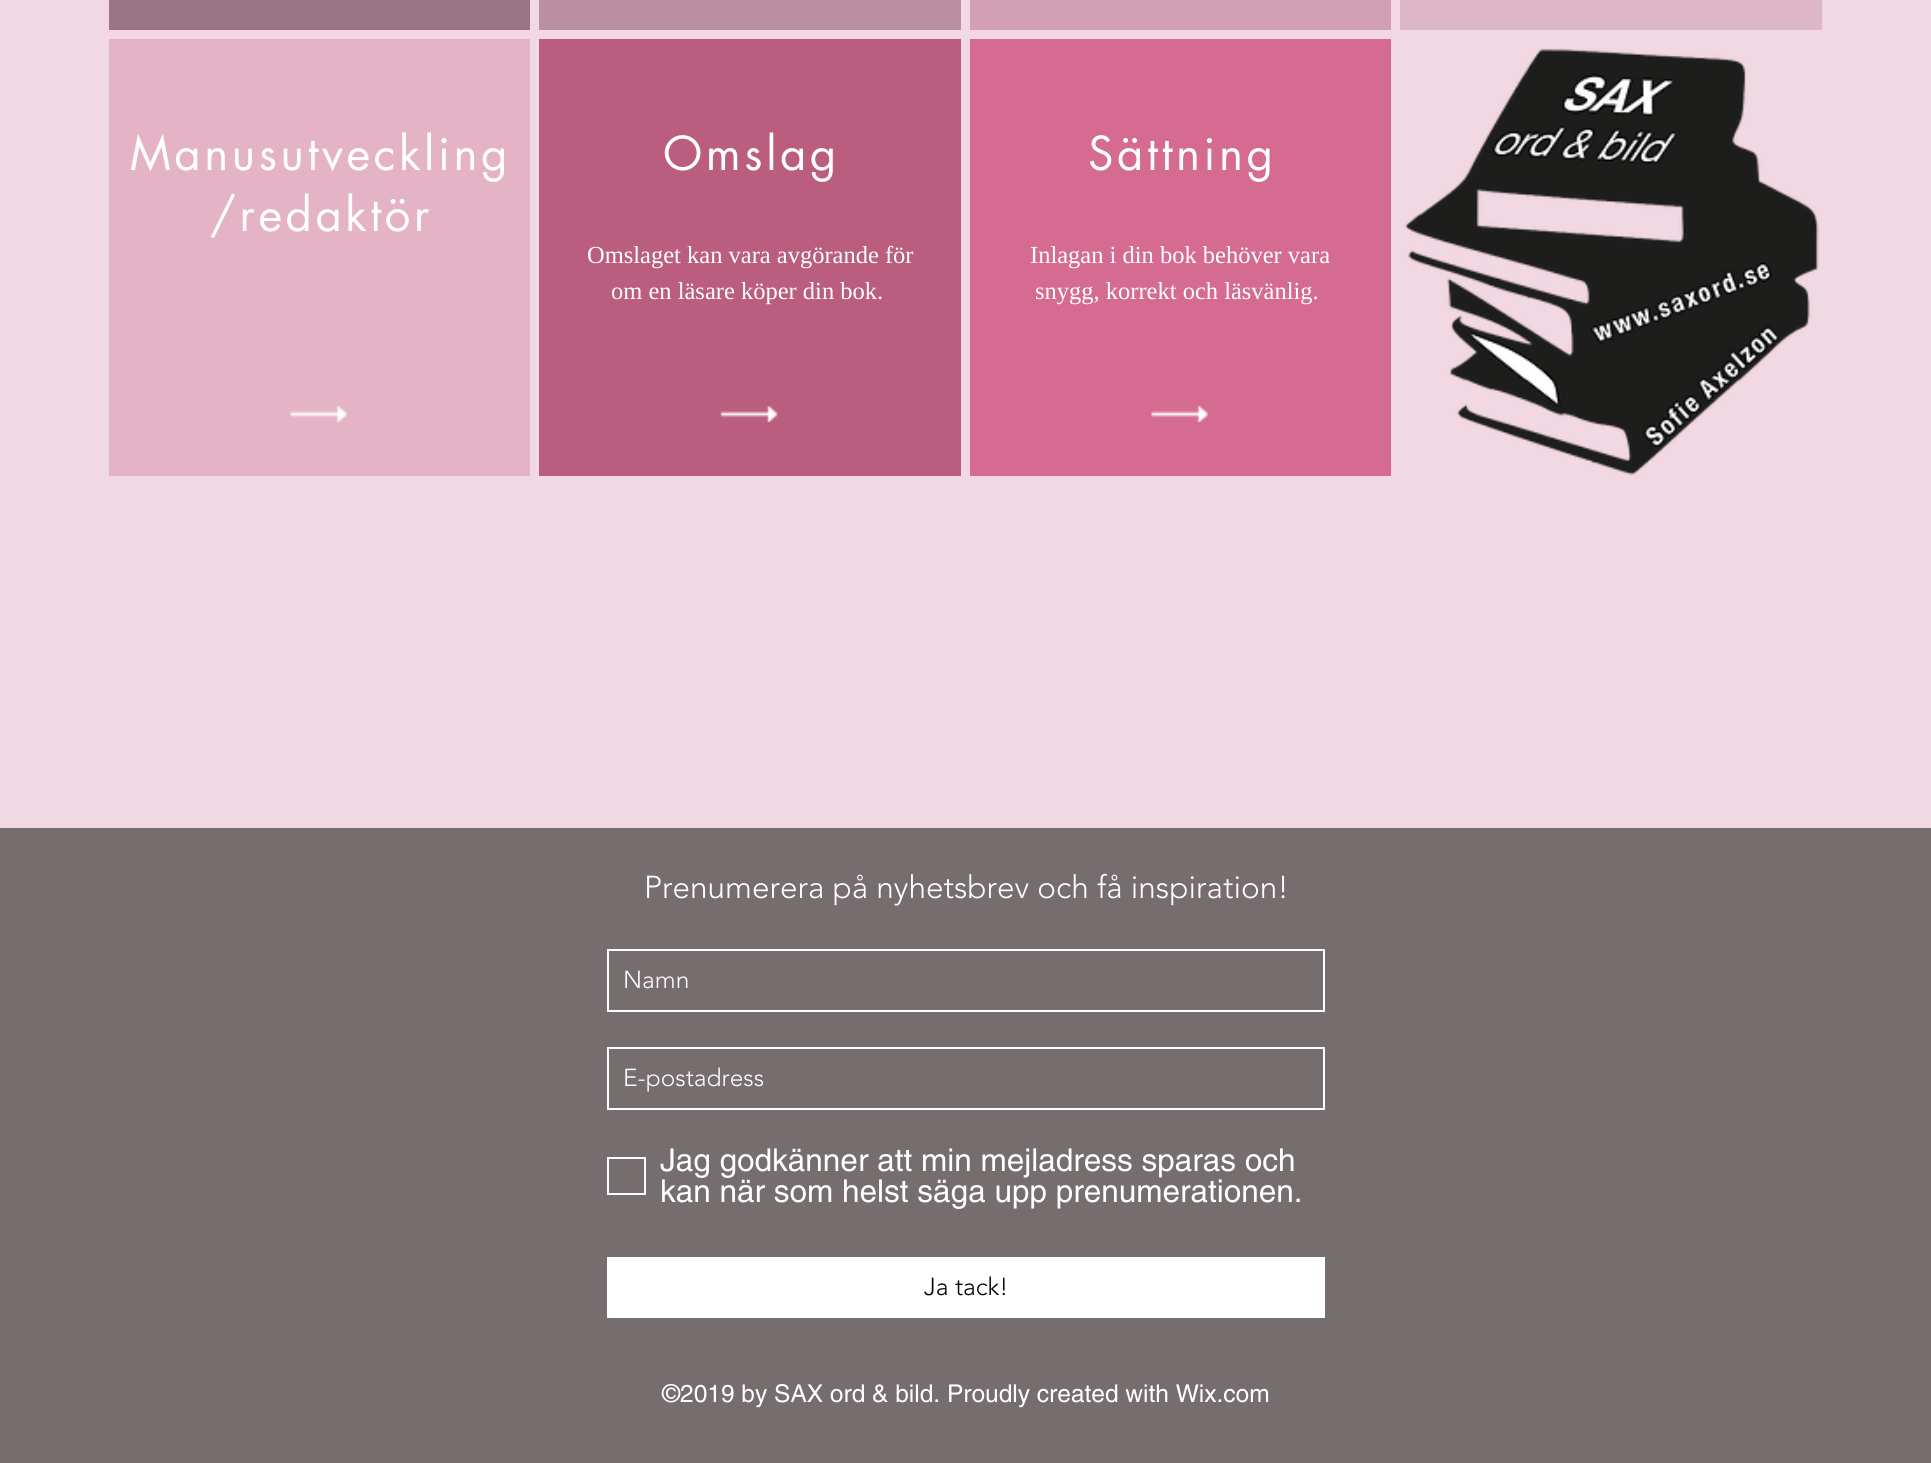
#include <cairo.h>
#include <math.h>
#include <stddef.h>


static void rgb(cairo_t *cr, int r, int g, int b)
{
	cairo_set_source_rgb(cr, r / 255.0, g / 255.0, b / 255.0);
}

static void face(cairo_t *cr, const char *family, double size, int italic, int bold)
{
	cairo_select_font_face(cr, family, italic ? CAIRO_FONT_SLANT_ITALIC : CAIRO_FONT_SLANT_NORMAL,
		bold ? CAIRO_FONT_WEIGHT_BOLD : CAIRO_FONT_WEIGHT_NORMAL);
	cairo_set_font_size(cr, size);
}

static void label(cairo_t *cr, double x, double y, const char *s)
{
	cairo_move_to(cr, x, y);
	cairo_show_text(cr, s);
}

static void tracked(cairo_t *cr, double x, double y, const char *s, double letter, double word)
{
	cairo_move_to(cr, x, y);
	while (*s) {
		char ch[5] = {0};
		int n = 0;
		do ch[n++] = *s++; while ((*s & 0xC0) == 0x80);
		cairo_show_text(cr, ch);
		cairo_rel_move_to(cr, letter + word * (*ch == ' '), 0);
	}
}

static void rect(cairo_t *cr, double x, double y, double w, double h)
{
	cairo_rectangle(cr, x, y, w, h);
	cairo_fill(cr);
}

static void image(cairo_t *cr, const char *path, double x, double y, double w, double h)
{
	cairo_surface_t *image = cairo_image_surface_create_from_png(path);
	cairo_save(cr);
	cairo_set_source_surface(cr, image, x, y);
	cairo_rectangle(cr, x, y, w, h);
	cairo_fill(cr);
	cairo_restore(cr);
	cairo_surface_destroy(image);
}

static void draw(cairo_t *cr) {
	rgb(cr, 242, 216, 226);
	cairo_paint(cr);
	rgb(cr, 186, 143, 159);
	rect(cr, 539, 0, 422, 30);
	rgb(cr, 209, 161, 179);
	rect(cr, 970, 0, 421, 30);
	rgb(cr, 223, 184, 199);
	rect(cr, 1400, 0, 422, 30);
	rgb(cr, 153, 116, 130);
	rect(cr, 109, 0, 421, 30);
	rgb(cr, 229, 179, 198);
	rect(cr, 109, 39, 421, 437);
	face(cr, "futura", 45.5, 0, 0);
	rgb(cr, 255, 255, 255);
	tracked(cr, 130, 170, "Manusutveckling", 3.6, 0);
	tracked(cr, 210, 231, "/redaktör", 3.6, 0);
	image(cr, "image0.png", 290, 406, 57, 16);
	rgb(cr, 186, 93, 127);
	rect(cr, 539, 39, 422, 437);
	rgb(cr, 255, 255, 255);
	tracked(cr, 663, 170, "Omslag", 3.6, 0);
	face(cr, "Liberation Serif", 24.5, 0, 0);
	label(cr, 587, 263, "Omslaget kan vara avgörande för");
	label(cr, 611, 299, "om en läsare köper din bok.");
	image(cr, "image1.png", 720, 406, 58, 16);
	rgb(cr, 214, 107, 146);
	rect(cr, 970, 39, 421, 437);
	face(cr, "futura", 45.5, 0, 0);
	rgb(cr, 255, 255, 255);
	tracked(cr, 1088, 170, "Sättning", 3.6, 0);
	face(cr, "Liberation Serif", 24.5, 0, 0);
	label(cr, 1030, 263, "Inlagan i din bok behöver vara");
	label(cr, 1035, 299, "snygg, korrekt och läsvänlig.");
	image(cr, "image2.png", 1151, 406, 57, 16);
	image(cr, "image3.png", 1405, 48, 414, 427);
	rgb(cr, 118, 109, 111);
	rect(cr, 0, 828, 1931, 635);
	face(cr, "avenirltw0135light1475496 Light", 31.5, 0, 0);
	rgb(cr, 255, 255, 255);
	label(cr, 644, 898, "Prenumerera på nyhetsbrev och få inspiration!");
	cairo_rectangle(cr, 608, 950, 716, 61);
	cairo_stroke(cr);
	face(cr, "avenirltw0135light1475496 Light", 24.5, 0, 0);
	label(cr, 623, 988, "Namn");
	cairo_rectangle(cr, 608, 1048, 716, 61);
	cairo_stroke(cr);
	label(cr, 623, 1086, "E-postadress");
	cairo_rectangle(cr, 608, 1158, 37, 36);
	cairo_stroke(cr);
	face(cr, "helvetica", 31.5, 0, 0);
	label(cr, 660, 1171, "Jag godkänner att min mejladress sparas och");
	label(cr, 660, 1202, "kan när som helst säga upp prenumerationen.");
	rect(cr, 607, 1257, 718, 61);
	face(cr, "avenirltw0135light1475496 Light", 24.5, 0, 0);
	rgb(cr, 0, 0, 0);
	label(cr, 924, 1295, "Ja tack!");
	face(cr, "helvetica", 24.5, 0, 0);
	rgb(cr, 255, 255, 255);
	label(cr, 662, 1402, "©2019 by SAX ord & bild. Proudly created with Wix.com");
}

int main(void) {
	cairo_surface_t *surface = cairo_image_surface_create(CAIRO_FORMAT_RGB24, 1931, 1463);
	cairo_t *cr = cairo_create(surface);
	cairo_font_options_t *options = cairo_font_options_create();
	cairo_font_options_set_hint_metrics(options, CAIRO_HINT_METRICS_OFF);
	cairo_font_options_set_hint_style(options, CAIRO_HINT_STYLE_NONE);
	cairo_set_font_options(cr, options);
	cairo_set_miter_limit(cr, 4);
	draw(cr);
	cairo_surface_write_to_png(surface, "render.png");
	cairo_font_options_destroy(options);
	cairo_destroy(cr);
	cairo_surface_destroy(surface);
	return 0;
}
